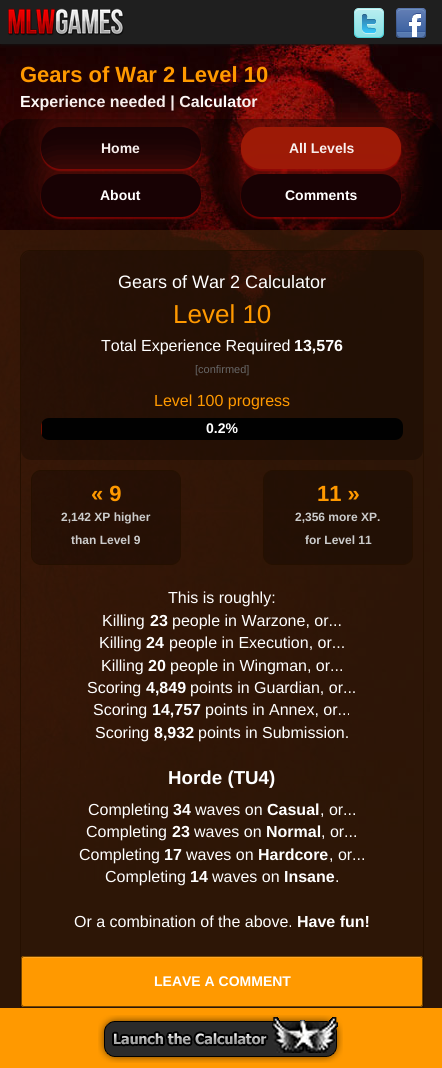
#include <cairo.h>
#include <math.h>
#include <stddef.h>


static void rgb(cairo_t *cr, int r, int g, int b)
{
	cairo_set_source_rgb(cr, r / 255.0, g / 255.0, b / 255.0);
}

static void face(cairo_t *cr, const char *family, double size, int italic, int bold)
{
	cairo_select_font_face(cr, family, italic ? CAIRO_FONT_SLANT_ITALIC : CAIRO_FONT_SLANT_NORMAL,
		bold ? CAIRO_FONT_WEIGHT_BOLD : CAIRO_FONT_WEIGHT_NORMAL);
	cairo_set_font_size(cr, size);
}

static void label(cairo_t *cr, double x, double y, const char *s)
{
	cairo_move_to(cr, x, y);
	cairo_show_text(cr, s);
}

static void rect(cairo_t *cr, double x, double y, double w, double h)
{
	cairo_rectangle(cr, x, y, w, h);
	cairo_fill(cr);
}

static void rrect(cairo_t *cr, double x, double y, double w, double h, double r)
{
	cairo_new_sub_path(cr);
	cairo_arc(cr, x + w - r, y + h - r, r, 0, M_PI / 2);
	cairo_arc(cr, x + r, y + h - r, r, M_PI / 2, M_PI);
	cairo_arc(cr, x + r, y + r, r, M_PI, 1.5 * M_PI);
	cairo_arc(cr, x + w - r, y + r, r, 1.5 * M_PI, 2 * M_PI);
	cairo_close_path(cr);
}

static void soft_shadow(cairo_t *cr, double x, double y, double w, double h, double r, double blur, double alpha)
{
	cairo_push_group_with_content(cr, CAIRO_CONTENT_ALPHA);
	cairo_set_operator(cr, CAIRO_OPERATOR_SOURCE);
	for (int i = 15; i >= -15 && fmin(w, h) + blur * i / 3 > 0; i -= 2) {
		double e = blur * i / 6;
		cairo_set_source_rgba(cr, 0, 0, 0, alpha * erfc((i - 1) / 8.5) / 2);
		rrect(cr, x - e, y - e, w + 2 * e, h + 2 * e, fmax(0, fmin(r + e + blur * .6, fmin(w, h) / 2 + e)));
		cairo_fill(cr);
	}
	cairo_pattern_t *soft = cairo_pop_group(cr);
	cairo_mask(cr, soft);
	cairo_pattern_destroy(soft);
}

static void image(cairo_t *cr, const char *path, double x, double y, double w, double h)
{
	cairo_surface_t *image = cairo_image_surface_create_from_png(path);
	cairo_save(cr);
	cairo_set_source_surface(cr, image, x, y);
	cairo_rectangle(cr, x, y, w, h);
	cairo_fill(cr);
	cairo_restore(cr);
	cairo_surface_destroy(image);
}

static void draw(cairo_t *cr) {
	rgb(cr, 24, 5, 1);
	cairo_paint(cr);
	image(cr, "image0.png", 0, 44, 442, 836);
	rgb(cr, 17, 17, 17);
	soft_shadow(cr, 1, 1, 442, 44, 0, 1.5, 1);
	rgb(cr, 31, 31, 31);
	rect(cr, 0, 0, 442, 44);
	image(cr, "image1.png", 8, 8, 116, 28);
	image(cr, "image2.png", 354, 8, 30, 30);
	image(cr, "image3.png", 396, 8, 30, 31);
	face(cr, "Liberation Sans", 22, 0, 1);
	rgb(cr, 255, 153, 0);
	label(cr, 20, 82, "Gears of War 2 Level 10");
	face(cr, "Liberation Sans", 16, 0, 1);
	rgb(cr, 255, 255, 255);
	label(cr, 20, 107, "Experience needed | Calculator");
	cairo_set_source_rgba(cr, 0, 0, 0, 0.45);
	cairo_new_path(cr);
	cairo_move_to(cr, 20, 119);
	cairo_line_to(cr, 422, 119);
	cairo_curve_to(cr, 433, 119, 442, 128, 442, 139);
	cairo_line_to(cr, 442, 230);
	cairo_line_to(cr, 0, 230);
	cairo_line_to(cr, 0, 139);
	cairo_curve_to(cr, 0, 128, 9, 119, 20, 119);
	cairo_close_path(cr);
	cairo_fill(cr);
	rgb(cr, 255, 0, 0);
	soft_shadow(cr, 41, 129, 160, 42, 20, 0.5, 0.38);
	rgb(cr, 159, 27, 14);
	soft_shadow(cr, 41, 115, 160, 42, 20, 15, 0.38);
	rgb(cr, 24, 2, 4);
	rrect(cr, 41, 127, 160, 42, 20);
	cairo_fill(cr);
	face(cr, "Liberation Sans", 14, 0, 1);
	rgb(cr, 255, 255, 255);
	label(cr, 101, 153, "Home");
	rgb(cr, 255, 0, 0);
	soft_shadow(cr, 241, 129, 160, 42, 20, 0.5, 0.38);
	rgb(cr, 159, 27, 14);
	soft_shadow(cr, 241, 115, 160, 42, 20, 15, 0.38);
	rgb(cr, 255, 0, 0);
	soft_shadow(cr, 241, 137, 160, 42, 20, 12.5, 0.25);
	rgb(cr, 157, 26, 6);
	rrect(cr, 241, 127, 160, 42, 20);
	cairo_fill(cr);
	rgb(cr, 255, 255, 255);
	label(cr, 289, 153, "All Levels");
	rgb(cr, 255, 0, 0);
	soft_shadow(cr, 41, 176, 160, 43, 20, 0.5, 0.38);
	cairo_set_source_rgba(cr, 0.204, 0.11, 0.035, 0.75);
	rect(cr, 0, 230, 442, 778);
	rrect(cr, 20.5, 250.5, 403, 777, 9.5);
	rgb(cr, 37, 16, 0);
	cairo_set_line_width(cr, 1);
	cairo_stroke(cr);
	rgb(cr, 159, 27, 14);
	soft_shadow(cr, 41, 162, 160, 43, 20, 15, 0.38);
	rgb(cr, 24, 2, 4);
	rrect(cr, 41, 174, 160, 43, 20);
	cairo_fill(cr);
	rgb(cr, 255, 255, 255);
	label(cr, 100, 200, "About");
	rgb(cr, 255, 0, 0);
	soft_shadow(cr, 241, 176, 160, 43, 20, 0.5, 0.38);
	rgb(cr, 159, 27, 14);
	soft_shadow(cr, 241, 162, 160, 43, 20, 15, 0.38);
	rgb(cr, 24, 2, 4);
	rrect(cr, 241, 174, 160, 43, 20);
	cairo_fill(cr);
	rgb(cr, 255, 255, 255);
	label(cr, 285, 200, "Comments");
	cairo_set_source_rgba(cr, 0, 0, 0, 0.25);
	rrect(cr, 21, 251, 402, 209, 10);
	cairo_fill(cr);
	face(cr, "Liberation Sans", 18, 0, 0);
	rgb(cr, 255, 255, 255);
	label(cr, 118, 288, "Gears of War 2 Calculator");
	face(cr, "Liberation Sans", 26, 0, 0);
	rgb(cr, 255, 153, 0);
	label(cr, 173, 323, "Level 10");
	face(cr, "Liberation Sans", 16, 0, 0);
	rgb(cr, 255, 255, 255);
	label(cr, 101, 351, "Total Experience Required");
	face(cr, "Liberation Sans", 16, 0, 1);
	label(cr, 294, 351, "13,576");
	face(cr, "Liberation Sans", 11, 0, 0);
	rgb(cr, 102, 102, 102);
	label(cr, 195, 373, "[confirmed]");
	face(cr, "Liberation Sans", 16, 0, 0);
	rgb(cr, 255, 153, 0);
	label(cr, 154, 406, "Level 100 progress");
	rgb(cr, 1, 1, 1);
	rrect(cr, 41, 418, 362, 22, 8);
	cairo_fill(cr);
	cairo_save(cr);
	rrect(cr, 41, 418, 362, 22, 8);
	cairo_clip(cr);
	rgb(cr, 111, 15, 0);
	rrect(cr, 41, 418, 1, 22, 0.5);
	cairo_fill(cr);
	cairo_restore(cr);
	face(cr, "Liberation Sans", 14, 0, 1);
	rgb(cr, 255, 255, 255);
	label(cr, 206, 433, "0.2%");
	cairo_set_source_rgba(cr, 0, 0, 0, 0.25);
	rrect(cr, 31.5, 470.5, 149, 94, 9.5);
	cairo_fill_preserve(cr);
	rgb(cr, 37, 16, 0);
	cairo_stroke(cr);
	face(cr, "Liberation Sans", 22, 0, 1);
	rgb(cr, 255, 153, 0);
	label(cr, 91, 501, "« 9");
	face(cr, "Liberation Sans", 12, 0, 1);
	rgb(cr, 204, 204, 204);
	label(cr, 61, 521, "2,142 XP higher");
	label(cr, 71, 544, "than Level 9");
	cairo_set_source_rgba(cr, 0, 0, 0, 0.25);
	rrect(cr, 263.5, 470.5, 149, 94, 9.5);
	cairo_fill_preserve(cr);
	rgb(cr, 37, 16, 0);
	cairo_stroke(cr);
	face(cr, "Liberation Sans", 22, 0, 1);
	rgb(cr, 255, 153, 0);
	label(cr, 317, 501, "11 »");
	face(cr, "Liberation Sans", 12, 0, 1);
	rgb(cr, 204, 204, 204);
	label(cr, 295, 521, "2,356 more XP.");
	label(cr, 305, 544, "for Level 11");
	face(cr, "Liberation Sans", 16, 0, 0);
	rgb(cr, 255, 255, 255);
	label(cr, 168, 603, "This is roughly:");
	label(cr, 102, 626, "Killing");
	face(cr, "Liberation Sans", 16, 0, 1);
	label(cr, 150, 626, "23");
	face(cr, "Liberation Sans", 16, 0, 0);
	label(cr, 172, 626, "people in Warzone, or...");
	label(cr, 99, 648, "Killing");
	face(cr, "Liberation Sans", 16, 0, 1);
	label(cr, 146, 648, "24");
	face(cr, "Liberation Sans", 16, 0, 0);
	label(cr, 169, 648, "people in Execution, or...");
	label(cr, 101, 671, "Killing");
	face(cr, "Liberation Sans", 16, 0, 1);
	label(cr, 148, 671, "20");
	face(cr, "Liberation Sans", 16, 0, 0);
	label(cr, 170, 671, "people in Wingman, or...");
	label(cr, 87, 693, "Scoring");
	face(cr, "Liberation Sans", 16, 0, 1);
	label(cr, 146, 693, "4,849");
	face(cr, "Liberation Sans", 16, 0, 0);
	label(cr, 190, 693, "points in Guardian, or...");
	label(cr, 93, 715, "Scoring");
	face(cr, "Liberation Sans", 16, 0, 1);
	label(cr, 152, 715, "14,757");
	face(cr, "Liberation Sans", 16, 0, 0);
	label(cr, 205, 715, "points in Annex, or...");
	label(cr, 95, 738, "Scoring");
	face(cr, "Liberation Sans", 16, 0, 1);
	label(cr, 154, 738, "8,932");
	face(cr, "Liberation Sans", 16, 0, 0);
	label(cr, 198, 738, "points in Submission.");
	face(cr, "Liberation Sans", 18.75, 0, 1);
	label(cr, 168, 784, "Horde (TU4)");
	face(cr, "Liberation Sans", 16, 0, 0);
	label(cr, 88, 815, "Completing");
	face(cr, "Liberation Sans", 16, 0, 1);
	label(cr, 173, 815, "34");
	face(cr, "Liberation Sans", 16, 0, 0);
	label(cr, 195, 815, "waves on");
	face(cr, "Liberation Sans", 16, 0, 1);
	label(cr, 267, 815, "Casual");
	face(cr, "Liberation Sans", 16, 0, 0);
	label(cr, 320, 815, ", or...");
	label(cr, 86, 837, "Completing");
	face(cr, "Liberation Sans", 16, 0, 1);
	label(cr, 172, 837, "23");
	face(cr, "Liberation Sans", 16, 0, 0);
	label(cr, 194, 837, "waves on");
	face(cr, "Liberation Sans", 16, 0, 1);
	label(cr, 266, 837, "Normal");
	face(cr, "Liberation Sans", 16, 0, 0);
	label(cr, 321, 837, ", or...");
	label(cr, 79, 860, "Completing");
	face(cr, "Liberation Sans", 16, 0, 1);
	label(cr, 164, 860, "17");
	face(cr, "Liberation Sans", 16, 0, 0);
	label(cr, 186, 860, "waves on");
	face(cr, "Liberation Sans", 16, 0, 1);
	label(cr, 258, 860, "Hardcore");
	face(cr, "Liberation Sans", 16, 0, 0);
	label(cr, 329, 860, ", or...");
	label(cr, 105, 882, "Completing");
	face(cr, "Liberation Sans", 16, 0, 1);
	label(cr, 190, 882, "14");
	face(cr, "Liberation Sans", 16, 0, 0);
	label(cr, 212, 882, "waves on");
	face(cr, "Liberation Sans", 16, 0, 1);
	label(cr, 284, 882, "Insane");
	face(cr, "Liberation Sans", 16, 0, 0);
	label(cr, 335, 882, ".");
	label(cr, 74, 927, "Or a combination of the above.");
	face(cr, "Liberation Sans", 16, 0, 1);
	label(cr, 297, 927, "Have fun!");
	rgb(cr, 255, 153, 0);
	rrect(cr, 21, 956, 402, 51, 3);
	cairo_fill(cr);
	rgb(cr, 255, 168, 38);
	cairo_new_path(cr);
	cairo_move_to(cr, 24, 958);
	cairo_line_to(cr, 420, 958);
	cairo_curve_to(cr, 421, 958, 422, 959, 422, 960);
	cairo_curve_to(cr, 422, 959, 422, 957, 420, 957);
	cairo_line_to(cr, 24, 957);
	cairo_line_to(cr, 22, 958);
	cairo_line_to(cr, 22, 960);
	cairo_curve_to(cr, 22, 959, 23, 958, 24, 958);
	cairo_close_path(cr);
	cairo_fill(cr);
	rrect(cr, 21.5, 956.5, 401, 50, 2.5);
	rgb(cr, 115, 69, 0);
	cairo_stroke(cr);
	face(cr, "Liberation Sans", 14, 0, 1);
	rgb(cr, 255, 255, 255);
	label(cr, 154, 986, "LEAVE A COMMENT");
	rgb(cr, 255, 153, 0);
	rect(cr, 0, 1008, 442, 60);
	image(cr, "image4.png", 98, 1015, 245, 48);
}

int main(void) {
	cairo_surface_t *surface = cairo_image_surface_create(CAIRO_FORMAT_RGB24, 442, 1068);
	cairo_t *cr = cairo_create(surface);
	cairo_font_options_t *options = cairo_font_options_create();
	cairo_font_options_set_hint_metrics(options, CAIRO_HINT_METRICS_OFF);
	cairo_font_options_set_hint_style(options, CAIRO_HINT_STYLE_NONE);
	cairo_set_font_options(cr, options);
	cairo_set_miter_limit(cr, 4);
	draw(cr);
	cairo_surface_write_to_png(surface, "render.png");
	cairo_font_options_destroy(options);
	cairo_destroy(cr);
	cairo_surface_destroy(surface);
	return 0;
}
